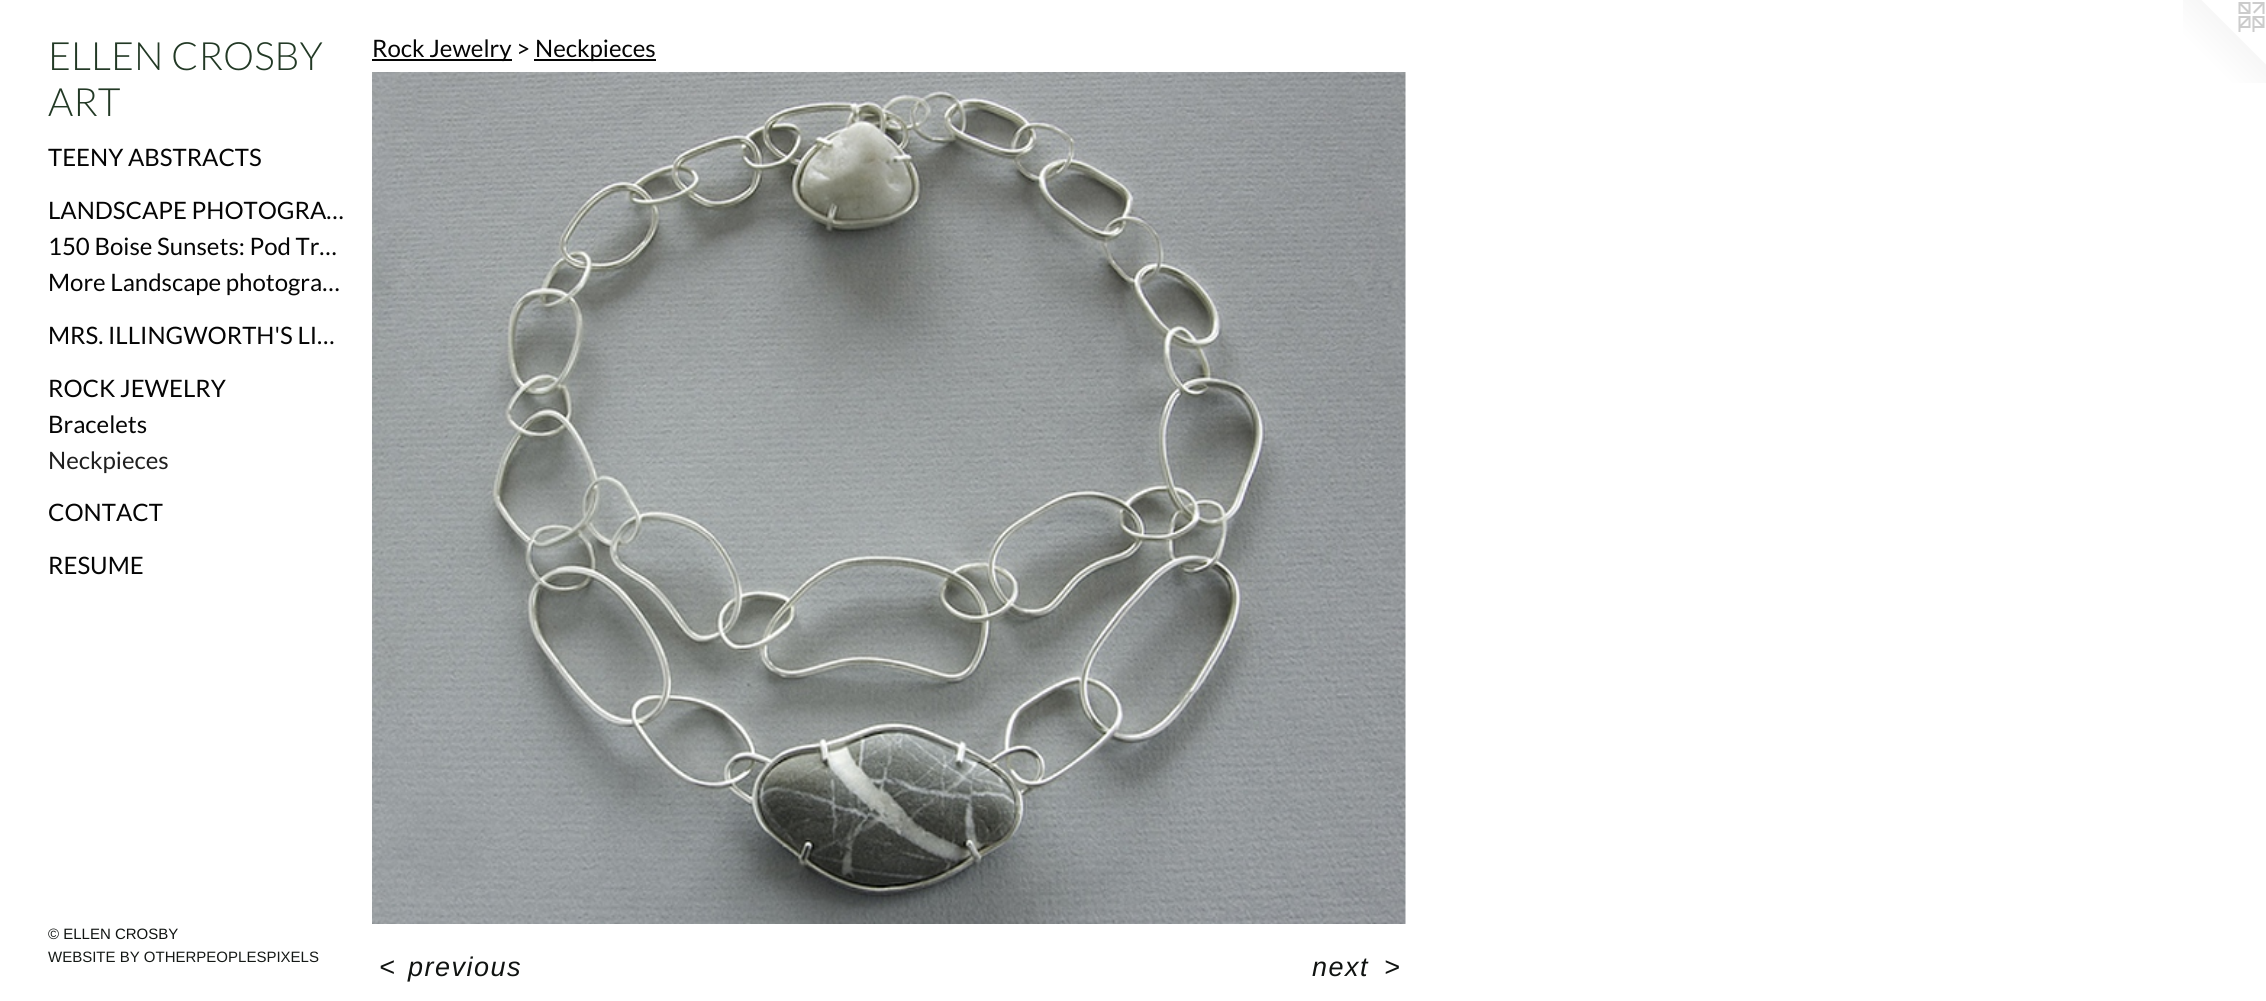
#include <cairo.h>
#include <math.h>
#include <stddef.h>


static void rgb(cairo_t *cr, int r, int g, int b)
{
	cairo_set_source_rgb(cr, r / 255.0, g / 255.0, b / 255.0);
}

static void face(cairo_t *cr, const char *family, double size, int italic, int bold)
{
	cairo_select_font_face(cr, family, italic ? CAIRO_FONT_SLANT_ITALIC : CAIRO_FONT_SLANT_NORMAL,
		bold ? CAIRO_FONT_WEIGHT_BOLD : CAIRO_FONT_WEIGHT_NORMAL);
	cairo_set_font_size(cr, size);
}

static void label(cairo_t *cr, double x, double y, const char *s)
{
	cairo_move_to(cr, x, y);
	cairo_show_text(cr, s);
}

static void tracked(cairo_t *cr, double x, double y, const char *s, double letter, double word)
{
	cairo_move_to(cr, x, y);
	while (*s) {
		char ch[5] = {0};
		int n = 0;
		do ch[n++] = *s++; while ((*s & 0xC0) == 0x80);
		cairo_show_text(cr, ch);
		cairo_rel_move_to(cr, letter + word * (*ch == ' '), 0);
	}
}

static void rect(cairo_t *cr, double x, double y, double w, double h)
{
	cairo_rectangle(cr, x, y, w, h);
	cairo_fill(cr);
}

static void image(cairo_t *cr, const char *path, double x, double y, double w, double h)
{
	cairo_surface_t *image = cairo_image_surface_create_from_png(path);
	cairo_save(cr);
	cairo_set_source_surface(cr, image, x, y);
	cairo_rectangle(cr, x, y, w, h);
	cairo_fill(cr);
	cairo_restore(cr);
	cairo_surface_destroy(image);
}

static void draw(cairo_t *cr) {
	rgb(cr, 255, 255, 255);
	cairo_paint(cr);
	face(cr, "Lato Light", 39, 0, 0);
	rgb(cr, 34, 57, 37);
	label(cr, 48, 70, "ELLEN CROSBY");
	label(cr, 48, 116, "ART");
	face(cr, "Lato", 24, 0, 0);
	rgb(cr, 5, 5, 5);
	label(cr, 48, 166, "TEENY ABSTRACTS");
	label(cr, 48, 219, "LANDSCAPE PHOTOGRA…");
	label(cr, 48, 255, "150 Boise Sunsets: Pod Tr…");
	label(cr, 48, 291, "More Landscape photogra…");
	label(cr, 48, 344, "MRS. ILLINGWORTH'S LI…");
	label(cr, 48, 397, "ROCK JEWELRY");
	label(cr, 48, 433, "Bracelets");
	rgb(cr, 31, 31, 31);
	label(cr, 48, 469, "Neckpieces");
	rgb(cr, 5, 5, 5);
	label(cr, 48, 521, "CONTACT");
	label(cr, 48, 574, "RESUME");
	face(cr, "Liberation Sans", 15, 0, 0);
	rgb(cr, 16, 19, 17);
	label(cr, 48, 939, "© ELLEN CROSBY");
	rgb(cr, 21, 25, 22);
	label(cr, 48, 962, "WEBSITE BY OTHERPEOPLESPIXELS");
	rgb(cr, 5, 5, 5);
	rect(cr, 372, 59, 140, 2);
	face(cr, "Lato", 24, 0, 0);
	label(cr, 372, 57, "Rock Jewelry >");
	rect(cr, 534, 59, 122, 2);
	label(cr, 535, 57, "Neckpieces");
	image(cr, "image0.png", 372, 72, 1034, 852);
	face(cr, "Liberation Sans", 27, 1, 0);
	rgb(cr, 16, 19, 17);
	tracked(cr, 379, 976, "<", 1.5, 0);
	tracked(cr, 408, 976, "previous", 1.5, 0);
	tracked(cr, 1312, 976, "next", 1.5, 0);
	tracked(cr, 1384, 976, ">", 1.5, 0);
	image(cr, "image1.png", 2183, 0, 83, 83);
}

int main(void) {
	cairo_surface_t *surface = cairo_image_surface_create(CAIRO_FORMAT_RGB24, 2266, 1001);
	cairo_t *cr = cairo_create(surface);
	cairo_font_options_t *options = cairo_font_options_create();
	cairo_font_options_set_hint_metrics(options, CAIRO_HINT_METRICS_OFF);
	cairo_font_options_set_hint_style(options, CAIRO_HINT_STYLE_NONE);
	cairo_set_font_options(cr, options);
	cairo_set_miter_limit(cr, 4);
	draw(cr);
	cairo_surface_write_to_png(surface, "render.png");
	cairo_font_options_destroy(options);
	cairo_destroy(cr);
	cairo_surface_destroy(surface);
	return 0;
}
